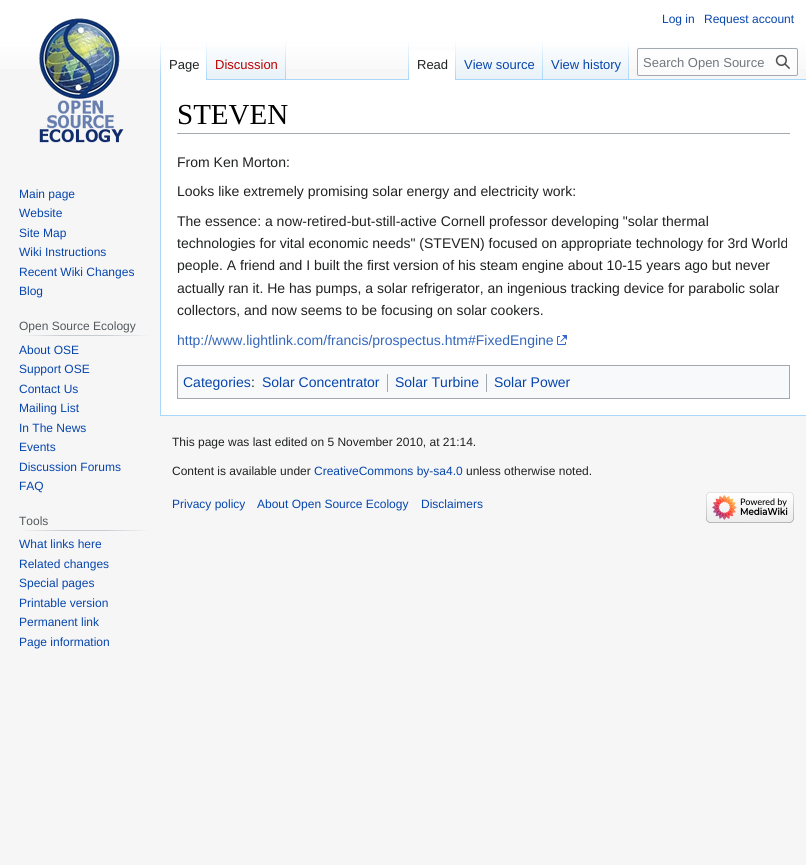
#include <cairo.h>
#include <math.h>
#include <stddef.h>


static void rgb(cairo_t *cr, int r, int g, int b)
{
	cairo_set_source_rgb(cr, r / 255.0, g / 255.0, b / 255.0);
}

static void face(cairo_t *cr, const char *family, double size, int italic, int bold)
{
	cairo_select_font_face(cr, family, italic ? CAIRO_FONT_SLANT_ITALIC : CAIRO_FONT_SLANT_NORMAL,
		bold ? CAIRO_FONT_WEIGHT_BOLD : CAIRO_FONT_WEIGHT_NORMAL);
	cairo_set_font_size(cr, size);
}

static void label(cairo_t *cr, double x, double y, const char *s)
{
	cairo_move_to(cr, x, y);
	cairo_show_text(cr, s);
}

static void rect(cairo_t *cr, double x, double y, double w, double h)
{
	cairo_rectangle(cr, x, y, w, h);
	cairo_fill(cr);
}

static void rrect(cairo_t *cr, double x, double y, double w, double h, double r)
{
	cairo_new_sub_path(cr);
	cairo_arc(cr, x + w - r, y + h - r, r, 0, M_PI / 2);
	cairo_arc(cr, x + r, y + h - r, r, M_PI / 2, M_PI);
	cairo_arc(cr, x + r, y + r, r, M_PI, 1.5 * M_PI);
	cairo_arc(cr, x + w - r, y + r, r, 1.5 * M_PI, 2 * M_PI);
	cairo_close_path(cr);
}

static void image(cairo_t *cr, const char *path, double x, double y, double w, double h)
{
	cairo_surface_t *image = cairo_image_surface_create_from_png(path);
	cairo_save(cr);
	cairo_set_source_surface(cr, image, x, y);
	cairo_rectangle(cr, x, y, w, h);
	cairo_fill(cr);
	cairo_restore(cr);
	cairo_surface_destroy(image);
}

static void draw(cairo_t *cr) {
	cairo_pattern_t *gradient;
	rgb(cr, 246, 246, 246);
	cairo_paint(cr);
	gradient = cairo_pattern_create_linear(403, 0, 403, 80);
	cairo_pattern_add_color_stop_rgba(gradient, 0.5, 1, 1, 1, 1);
	cairo_pattern_add_color_stop_rgba(gradient, 1, 0.965, 0.965, 0.965, 1);
	cairo_set_source(cr, gradient);
	cairo_pattern_destroy(gradient);
	rect(cr, 0, 0, 806, 69);
	face(cr, "Liberation Sans", 12, 0, 0);
	rgb(cr, 6, 69, 173);
	label(cr, 662, 23, "Log in");
	label(cr, 704, 23, "Request account");
	rgb(cr, 167, 215, 249);
	rect(cr, 160, 415, 646, 1);
	rect(cr, 160, 79, 1, 337);
	gradient = cairo_pattern_create_linear(161, 40, 161, 80);
	cairo_pattern_add_color_stop_rgba(gradient, 0, 0.655, 0.843, 0.976, 0);
	cairo_pattern_add_color_stop_rgba(gradient, 1, 0.655, 0.843, 0.976, 1);
	cairo_set_source(cr, gradient);
	cairo_pattern_destroy(gradient);
	rect(cr, 160, 40, 1, 40);
	rgb(cr, 255, 255, 255);
	rect(cr, 161, 51, 45, 29);
	gradient = cairo_pattern_create_linear(207, 40, 207, 80);
	cairo_pattern_add_color_stop_rgba(gradient, 0, 1, 1, 1, 1);
	cairo_pattern_add_color_stop_rgba(gradient, 1, 0.655, 0.843, 0.976, 1);
	cairo_set_source(cr, gradient);
	cairo_pattern_destroy(gradient);
	rect(cr, 206, 40, 1, 40);
	face(cr, "Liberation Sans", 13, 0, 0);
	rgb(cr, 32, 33, 34);
	label(cr, 169, 69, "Page");
	gradient = cairo_pattern_create_linear(247, 80, 247, 40);
	cairo_pattern_add_color_stop_rgba(gradient, 0, 0.467, 0.757, 0.965, 1);
	cairo_pattern_add_color_stop_rgba(gradient, 0.03, 0.91, 0.949, 0.973, 1);
	cairo_pattern_add_color_stop_rgba(gradient, 1, 1, 1, 1, 1);
	cairo_set_source(cr, gradient);
	cairo_pattern_destroy(gradient);
	rect(cr, 207, 46, 79, 34);
	gradient = cairo_pattern_create_linear(286, 40, 286, 80);
	cairo_pattern_add_color_stop_rgba(gradient, 0, 0.655, 0.843, 0.976, 0);
	cairo_pattern_add_color_stop_rgba(gradient, 1, 0.655, 0.843, 0.976, 1);
	cairo_set_source(cr, gradient);
	cairo_pattern_destroy(gradient);
	rect(cr, 285, 40, 1, 40);
	rgb(cr, 186, 0, 0);
	label(cr, 215, 69, "Discussion");
	rgb(cr, 167, 215, 249);
	rect(cr, 286, 79, 520, 1);
	gradient = cairo_pattern_create_linear(409, 40, 409, 80);
	cairo_pattern_add_color_stop_rgba(gradient, 0, 0.655, 0.843, 0.976, 0);
	cairo_pattern_add_color_stop_rgba(gradient, 1, 0.655, 0.843, 0.976, 1);
	cairo_set_source(cr, gradient);
	cairo_pattern_destroy(gradient);
	rect(cr, 408, 40, 1, 40);
	rgb(cr, 255, 255, 255);
	rect(cr, 409, 51, 46, 29);
	gradient = cairo_pattern_create_linear(456, 40, 456, 80);
	cairo_pattern_add_color_stop_rgba(gradient, 0, 1, 1, 1, 1);
	cairo_pattern_add_color_stop_rgba(gradient, 1, 0.655, 0.843, 0.976, 1);
	cairo_set_source(cr, gradient);
	cairo_pattern_destroy(gradient);
	rect(cr, 455, 40, 1, 40);
	rgb(cr, 32, 33, 34);
	label(cr, 417, 69, "Read");
	gradient = cairo_pattern_create_linear(500, 80, 500, 40);
	cairo_pattern_add_color_stop_rgba(gradient, 0, 0.467, 0.757, 0.965, 1);
	cairo_pattern_add_color_stop_rgba(gradient, 0.03, 0.91, 0.949, 0.973, 1);
	cairo_pattern_add_color_stop_rgba(gradient, 1, 1, 1, 1, 1);
	cairo_set_source(cr, gradient);
	cairo_pattern_destroy(gradient);
	rect(cr, 456, 46, 87, 33);
	gradient = cairo_pattern_create_linear(543, 40, 543, 80);
	cairo_pattern_add_color_stop_rgba(gradient, 0, 0.655, 0.843, 0.976, 0);
	cairo_pattern_add_color_stop_rgba(gradient, 1, 0.655, 0.843, 0.976, 1);
	cairo_set_source(cr, gradient);
	cairo_pattern_destroy(gradient);
	rect(cr, 542, 40, 1, 40);
	rgb(cr, 6, 69, 173);
	label(cr, 464, 69, "View source");
	gradient = cairo_pattern_create_linear(586, 80, 586, 40);
	cairo_pattern_add_color_stop_rgba(gradient, 0, 0.467, 0.757, 0.965, 1);
	cairo_pattern_add_color_stop_rgba(gradient, 0.03, 0.91, 0.949, 0.973, 1);
	cairo_pattern_add_color_stop_rgba(gradient, 1, 1, 1, 1, 1);
	cairo_set_source(cr, gradient);
	cairo_pattern_destroy(gradient);
	rect(cr, 543, 46, 86, 33);
	gradient = cairo_pattern_create_linear(629, 40, 629, 80);
	cairo_pattern_add_color_stop_rgba(gradient, 0, 0.655, 0.843, 0.976, 0);
	cairo_pattern_add_color_stop_rgba(gradient, 1, 0.655, 0.843, 0.976, 1);
	cairo_set_source(cr, gradient);
	cairo_pattern_destroy(gradient);
	rect(cr, 628, 40, 1, 40);
	rgb(cr, 6, 69, 173);
	label(cr, 551, 69, "View history");
	cairo_set_source_rgba(cr, 1, 1, 1, 0.5);
	rrect(cr, 637.5, 48.5, 160, 27, 1.5);
	cairo_fill_preserve(cr);
	rgb(cr, 162, 169, 177);
	cairo_set_line_width(cr, 1);
	cairo_stroke(cr);
	rgb(cr, 114, 119, 125);
	label(cr, 643, 67, "Search Open Source");
	image(cr, "image0.png", 775, 54, 15, 15);
	image(cr, "image1.png", 39, 18, 85, 125);
	face(cr, "Liberation Sans", 12, 0, 0);
	rgb(cr, 6, 69, 173);
	label(cr, 19, 198, "Main page");
	label(cr, 19, 217, "Website");
	label(cr, 19, 237, "Site Map");
	label(cr, 19, 256, "Wiki Instructions");
	label(cr, 19, 276, "Recent Wiki Changes");
	label(cr, 19, 295, "Blog");
	gradient = cairo_pattern_create_linear(19, 336, 150, 336);
	cairo_pattern_add_color_stop_rgba(gradient, 0, 0.965, 0.965, 0.965, 1);
	cairo_pattern_add_color_stop_rgba(gradient, 0.33, 0.784, 0.8, 0.82, 1);
	cairo_pattern_add_color_stop_rgba(gradient, 0.66, 0.784, 0.8, 0.82, 1);
	cairo_pattern_add_color_stop_rgba(gradient, 1, 0.965, 0.965, 0.965, 1);
	cairo_set_source(cr, gradient);
	cairo_pattern_destroy(gradient);
	rect(cr, 19, 335, 131, 1);
	rgb(cr, 84, 89, 93);
	label(cr, 19, 330, "Open Source Ecology");
	rgb(cr, 6, 69, 173);
	label(cr, 19, 354, "About OSE");
	label(cr, 19, 373, "Support OSE");
	label(cr, 19, 393, "Contact Us");
	label(cr, 19, 412, "Mailing List");
	label(cr, 19, 432, "In The News");
	label(cr, 19, 451, "Events");
	label(cr, 19, 471, "Discussion Forums");
	label(cr, 19, 490, "FAQ");
	gradient = cairo_pattern_create_linear(19, 531, 150, 531);
	cairo_pattern_add_color_stop_rgba(gradient, 0, 0.965, 0.965, 0.965, 1);
	cairo_pattern_add_color_stop_rgba(gradient, 0.33, 0.784, 0.8, 0.82, 1);
	cairo_pattern_add_color_stop_rgba(gradient, 0.66, 0.784, 0.8, 0.82, 1);
	cairo_pattern_add_color_stop_rgba(gradient, 1, 0.965, 0.965, 0.965, 1);
	cairo_set_source(cr, gradient);
	cairo_pattern_destroy(gradient);
	rect(cr, 19, 530, 131, 1);
	rgb(cr, 84, 89, 93);
	label(cr, 19, 525, "Tools");
	rgb(cr, 6, 69, 173);
	label(cr, 19, 548, "What links here");
	label(cr, 19, 568, "Related changes");
	label(cr, 19, 587, "Special pages");
	label(cr, 19, 607, "Printable version");
	label(cr, 19, 626, "Permanent link");
	label(cr, 19, 646, "Page information");
	rgb(cr, 255, 255, 255);
	rect(cr, 161, 80, 645, 335);
	rgb(cr, 162, 169, 177);
	rect(cr, 177, 133, 613, 1);
	face(cr, "Liberation Serif", 29, 0, 0);
	rgb(cr, 0, 0, 0);
	label(cr, 177, 124, "STEVEN");
	face(cr, "Liberation Sans", 14, 0, 0);
	rgb(cr, 32, 33, 34);
	label(cr, 177, 167, "From Ken Morton:");
	label(cr, 177, 196, "Looks like extremely promising solar energy and electricity work:");
	label(cr, 177, 226, "The essence: a now-retired-but-still-active Cornell professor developing \"solar thermal");
	label(cr, 177, 248, "technologies for vital economic needs\" (STEVEN) focused on appropriate technology for 3rd World");
	label(cr, 177, 270, "people. A friend and I built the first version of his steam engine about 10-15 years ago but never");
	label(cr, 177, 293, "actually ran it. He has pumps, a solar refrigerator, an ingenious tracking device for parabolic solar");
	label(cr, 177, 315, "collectors, and now seems to be focusing on solar cookers.");
	rgb(cr, 51, 102, 187);
	label(cr, 177, 345, "http://www.lightlink.com/francis/prospectus.htm#FixedEngine");
	image(cr, "image2.png", 557, 335, 10, 10);
	rgb(cr, 248, 249, 250);
	cairo_rectangle(cr, 177.5, 365.5, 612, 33);
	cairo_fill_preserve(cr);
	rgb(cr, 162, 169, 177);
	cairo_stroke(cr);
	rgb(cr, 6, 69, 173);
	label(cr, 183, 387, "Categories");
	rgb(cr, 32, 33, 34);
	label(cr, 251, 387, ":");
	rgb(cr, 6, 69, 173);
	label(cr, 262, 387, "Solar Concentrator");
	rgb(cr, 162, 169, 177);
	rect(cr, 387, 374, 1, 18);
	rgb(cr, 6, 69, 173);
	label(cr, 395, 387, "Solar Turbine");
	rgb(cr, 162, 169, 177);
	rect(cr, 486, 374, 1, 18);
	rgb(cr, 6, 69, 173);
	label(cr, 494, 387, "Solar Power");
	face(cr, "Liberation Sans", 12, 0, 0);
	rgb(cr, 32, 33, 34);
	label(cr, 172, 446, "This page was last edited on 5 November 2010, at 21:14.");
	label(cr, 172, 475, "Content is available under");
	rgb(cr, 6, 69, 173);
	label(cr, 314, 475, "CreativeCommons by-sa4.0");
	rgb(cr, 32, 33, 34);
	label(cr, 466, 475, "unless otherwise noted.");
	rgb(cr, 6, 69, 173);
	label(cr, 172, 508, "Privacy policy");
	label(cr, 257, 508, "About Open Source Ecology");
	label(cr, 421, 508, "Disclaimers");
	image(cr, "image3.png", 706, 492, 88, 31);
}

int main(void) {
	cairo_surface_t *surface = cairo_image_surface_create(CAIRO_FORMAT_RGB24, 806, 865);
	cairo_t *cr = cairo_create(surface);
	cairo_font_options_t *options = cairo_font_options_create();
	cairo_font_options_set_hint_metrics(options, CAIRO_HINT_METRICS_OFF);
	cairo_font_options_set_hint_style(options, CAIRO_HINT_STYLE_NONE);
	cairo_set_font_options(cr, options);
	cairo_set_miter_limit(cr, 4);
	draw(cr);
	cairo_surface_write_to_png(surface, "render.png");
	cairo_font_options_destroy(options);
	cairo_destroy(cr);
	cairo_surface_destroy(surface);
	return 0;
}
